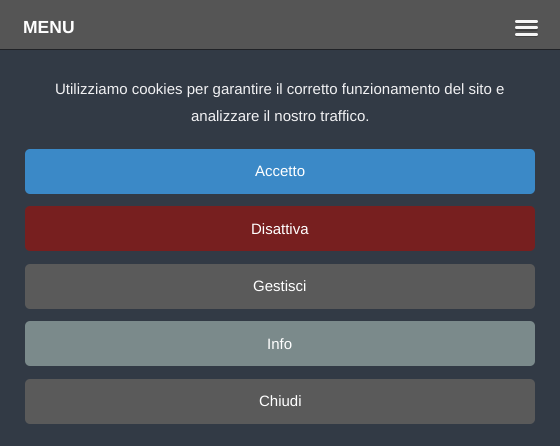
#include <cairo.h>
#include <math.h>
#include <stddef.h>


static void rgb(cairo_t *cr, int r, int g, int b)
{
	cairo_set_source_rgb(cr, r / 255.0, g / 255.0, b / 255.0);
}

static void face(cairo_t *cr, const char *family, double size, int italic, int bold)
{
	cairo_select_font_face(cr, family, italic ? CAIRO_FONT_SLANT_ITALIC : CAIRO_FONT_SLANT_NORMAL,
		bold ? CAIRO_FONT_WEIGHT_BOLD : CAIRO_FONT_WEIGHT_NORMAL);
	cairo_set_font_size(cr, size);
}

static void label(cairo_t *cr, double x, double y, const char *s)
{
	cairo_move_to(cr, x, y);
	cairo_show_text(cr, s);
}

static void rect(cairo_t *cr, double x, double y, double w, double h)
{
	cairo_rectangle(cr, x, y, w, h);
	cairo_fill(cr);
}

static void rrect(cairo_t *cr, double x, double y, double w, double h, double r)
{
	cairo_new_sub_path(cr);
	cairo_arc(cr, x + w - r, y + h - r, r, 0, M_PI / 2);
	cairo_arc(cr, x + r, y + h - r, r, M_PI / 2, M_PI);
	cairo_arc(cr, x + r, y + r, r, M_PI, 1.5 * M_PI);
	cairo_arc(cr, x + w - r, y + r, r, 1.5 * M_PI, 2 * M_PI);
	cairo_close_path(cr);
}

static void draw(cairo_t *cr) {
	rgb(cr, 85, 85, 85);
	cairo_paint(cr);
	face(cr, "Liberation Sans", 17.5, 0, 1);
	rgb(cr, 255, 255, 255);
	label(cr, 23, 33, "MENU");
	rgb(cr, 64, 64, 64);
	cairo_new_path(cr);
	cairo_move_to(cr, 515, 22);
	cairo_curve_to(cr, 514, 24.5, 519, 24, 520, 24);
	cairo_line_to(cr, 533, 24);
	cairo_curve_to(cr, 534, 24, 537.5, 25, 538, 23);
	cairo_curve_to(cr, 538, 22.5, 538, 21.5, 537.5, 21.5);
	cairo_curve_to(cr, 537.5, 22, 537, 22.5, 536, 22.5);
	cairo_line_to(cr, 516, 22.5);
	cairo_curve_to(cr, 516, 22.5, 515.5, 22, 515, 22);
	cairo_close_path(cr);
	cairo_fill(cr);
	rgb(cr, 245, 245, 245);
	rrect(cr, 515, 20, 23, 3, 1.5);
	cairo_fill(cr);
	rgb(cr, 64, 64, 64);
	cairo_new_path(cr);
	cairo_move_to(cr, 515.5, 28.5);
	cairo_line_to(cr, 515, 30);
	cairo_curve_to(cr, 515.5, 32, 519, 31, 520, 31);
	cairo_line_to(cr, 523, 31);
	cairo_curve_to(cr, 525, 31, 536.5, 31.5, 537.5, 30.5);
	cairo_curve_to(cr, 538, 30, 538, 29, 537.5, 28);
	cairo_line_to(cr, 536.5, 28.5);
	cairo_curve_to(cr, 534.5, 29, 516, 29, 515.5, 28.5);
	cairo_close_path(cr);
	cairo_fill(cr);
	rgb(cr, 245, 245, 245);
	rrect(cr, 515, 26, 23, 3, 1.5);
	cairo_fill(cr);
	rgb(cr, 64, 64, 64);
	cairo_new_path(cr);
	cairo_move_to(cr, 515.5, 34.5);
	cairo_line_to(cr, 515, 36);
	cairo_curve_to(cr, 515.5, 38, 519, 37, 520, 37);
	cairo_line_to(cr, 533, 37);
	cairo_curve_to(cr, 534.5, 37, 538, 38, 538, 35.5);
	cairo_line_to(cr, 537.5, 34.5);
	cairo_line_to(cr, 536.5, 35);
	cairo_curve_to(cr, 534.5, 35.5, 516, 35.5, 515.5, 34.5);
	cairo_close_path(cr);
	cairo_fill(cr);
	rgb(cr, 245, 245, 245);
	rrect(cr, 515, 33, 23, 3, 1.5);
	cairo_fill(cr);
	rgb(cr, 50, 58, 69);
	rect(cr, 0, 50, 560, 396);
	rgb(cr, 32, 34, 38);
	rect(cr, 0, 49, 560, 1);
	face(cr, "Liberation Sans", 15, 0, 0);
	rgb(cr, 241, 241, 243);
	label(cr, 55, 94, "Utilizziamo cookies per garantire il corretto funzionamento del sito e");
	label(cr, 191, 121, "analizzare il nostro traffico.");
	rgb(cr, 59, 137, 199);
	rrect(cr, 25, 149, 510, 45, 5);
	cairo_fill(cr);
	rgb(cr, 255, 255, 255);
	label(cr, 255, 176, "Accetto");
	rgb(cr, 119, 31, 31);
	rrect(cr, 25, 206, 510, 45, 5);
	cairo_fill(cr);
	rgb(cr, 255, 255, 255);
	label(cr, 251, 234, "Disattiva");
	rgb(cr, 90, 90, 90);
	rrect(cr, 25, 264, 510, 45, 5);
	cairo_fill(cr);
	rgb(cr, 255, 255, 255);
	label(cr, 253, 291, "Gestisci");
	rgb(cr, 123, 138, 139);
	rrect(cr, 25, 321, 510, 45, 5);
	cairo_fill(cr);
	rgb(cr, 255, 255, 255);
	label(cr, 267, 349, "Info");
	rgb(cr, 90, 90, 90);
	rrect(cr, 25, 379, 510, 45, 5);
	cairo_fill(cr);
	rgb(cr, 255, 255, 255);
	label(cr, 259, 406, "Chiudi");
}

int main(void) {
	cairo_surface_t *surface = cairo_image_surface_create(CAIRO_FORMAT_RGB24, 560, 446);
	cairo_t *cr = cairo_create(surface);
	cairo_font_options_t *options = cairo_font_options_create();
	cairo_font_options_set_hint_metrics(options, CAIRO_HINT_METRICS_OFF);
	cairo_font_options_set_hint_style(options, CAIRO_HINT_STYLE_NONE);
	cairo_set_font_options(cr, options);
	cairo_set_miter_limit(cr, 4);
	draw(cr);
	cairo_surface_write_to_png(surface, "render.png");
	cairo_font_options_destroy(options);
	cairo_destroy(cr);
	cairo_surface_destroy(surface);
	return 0;
}
